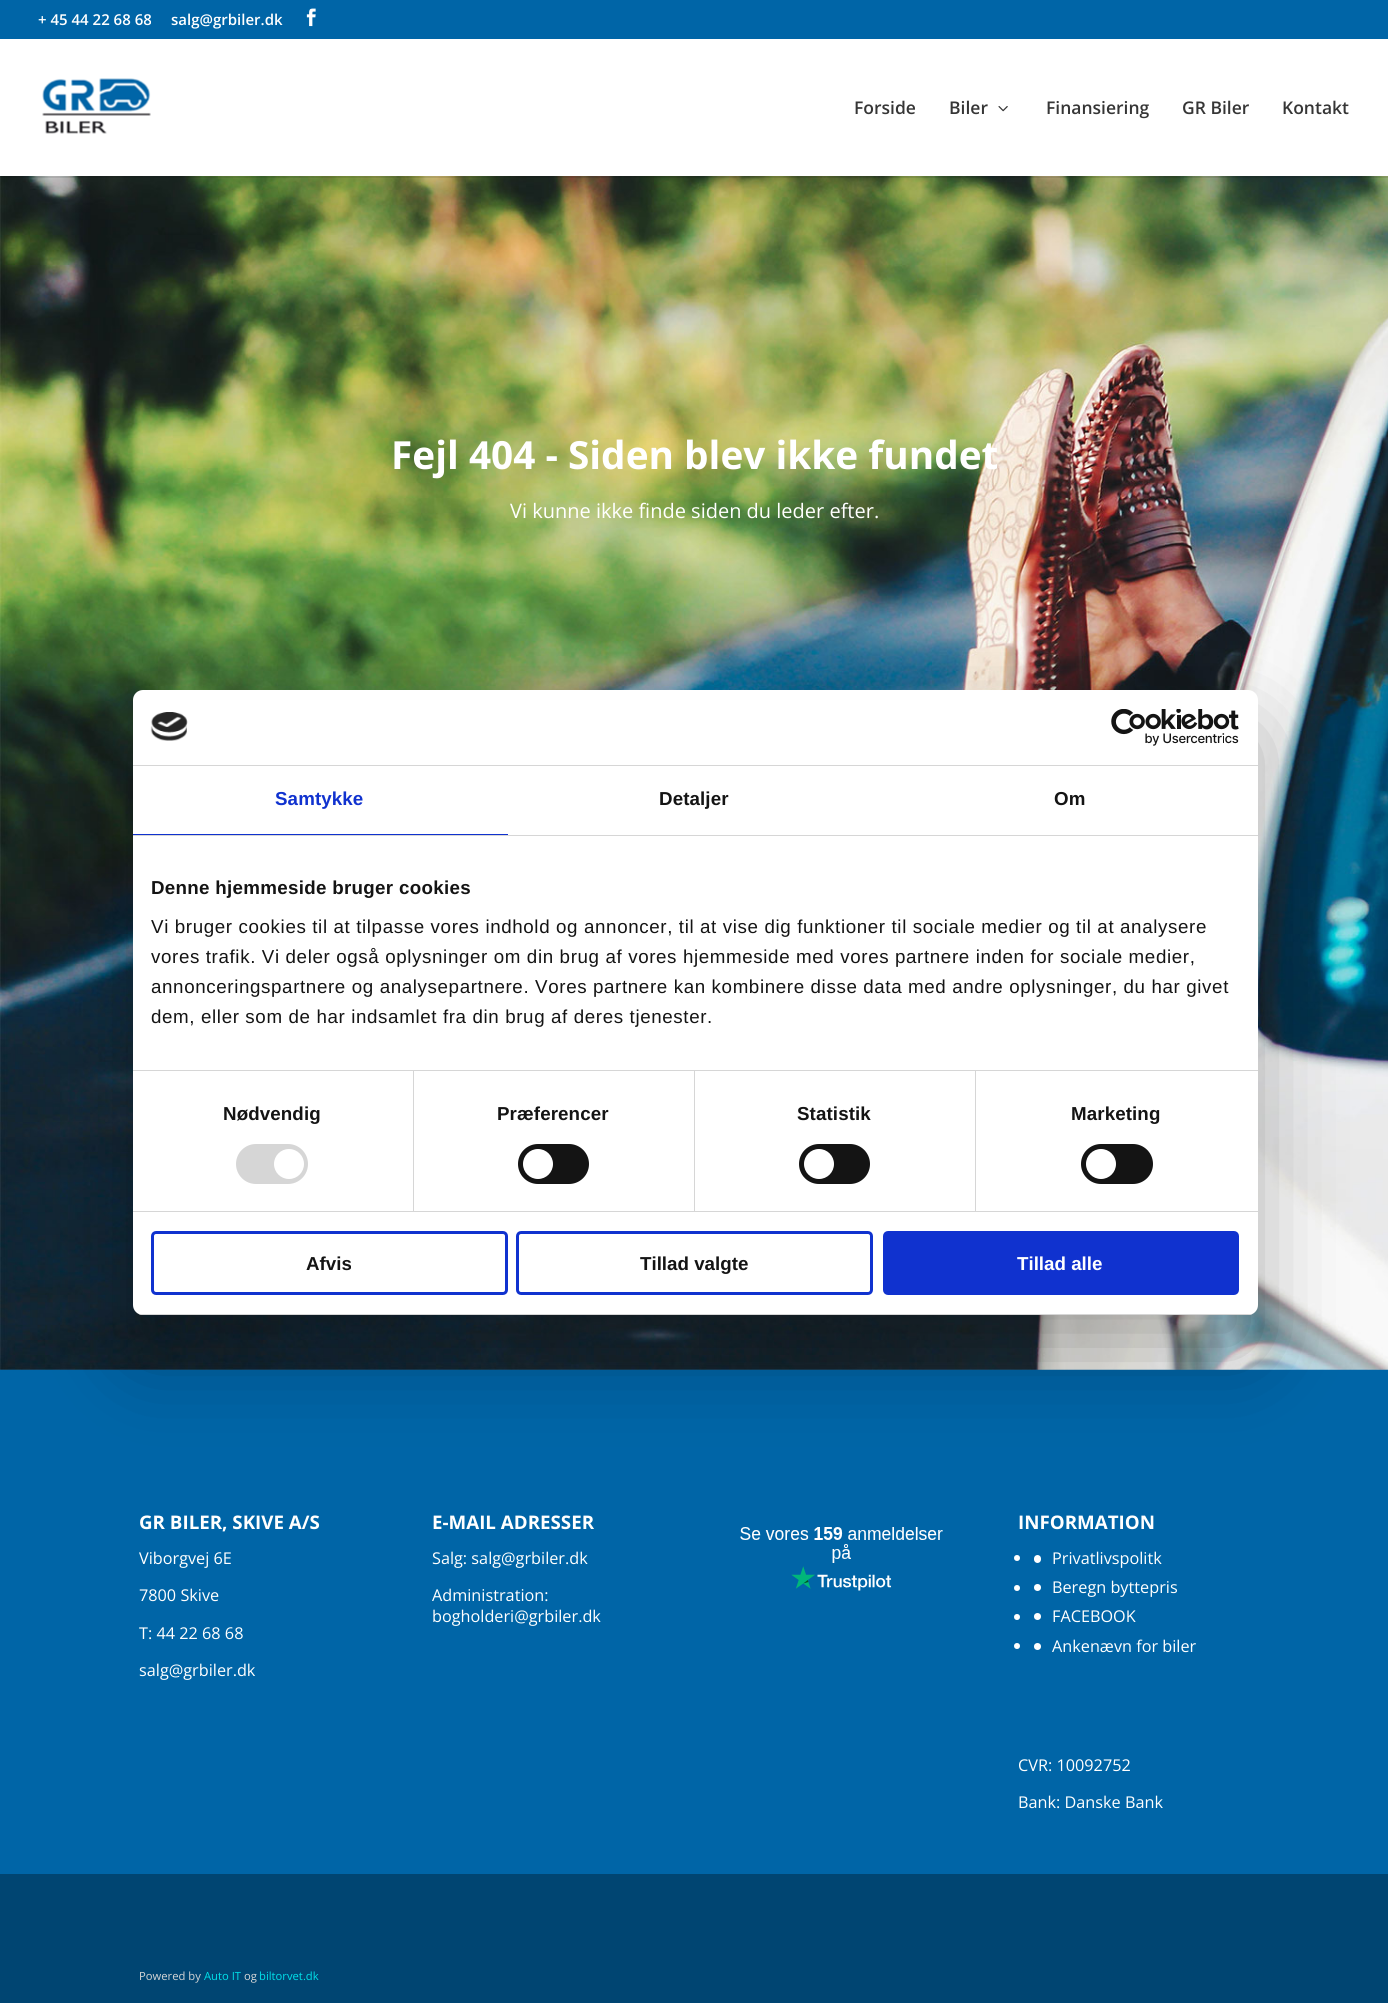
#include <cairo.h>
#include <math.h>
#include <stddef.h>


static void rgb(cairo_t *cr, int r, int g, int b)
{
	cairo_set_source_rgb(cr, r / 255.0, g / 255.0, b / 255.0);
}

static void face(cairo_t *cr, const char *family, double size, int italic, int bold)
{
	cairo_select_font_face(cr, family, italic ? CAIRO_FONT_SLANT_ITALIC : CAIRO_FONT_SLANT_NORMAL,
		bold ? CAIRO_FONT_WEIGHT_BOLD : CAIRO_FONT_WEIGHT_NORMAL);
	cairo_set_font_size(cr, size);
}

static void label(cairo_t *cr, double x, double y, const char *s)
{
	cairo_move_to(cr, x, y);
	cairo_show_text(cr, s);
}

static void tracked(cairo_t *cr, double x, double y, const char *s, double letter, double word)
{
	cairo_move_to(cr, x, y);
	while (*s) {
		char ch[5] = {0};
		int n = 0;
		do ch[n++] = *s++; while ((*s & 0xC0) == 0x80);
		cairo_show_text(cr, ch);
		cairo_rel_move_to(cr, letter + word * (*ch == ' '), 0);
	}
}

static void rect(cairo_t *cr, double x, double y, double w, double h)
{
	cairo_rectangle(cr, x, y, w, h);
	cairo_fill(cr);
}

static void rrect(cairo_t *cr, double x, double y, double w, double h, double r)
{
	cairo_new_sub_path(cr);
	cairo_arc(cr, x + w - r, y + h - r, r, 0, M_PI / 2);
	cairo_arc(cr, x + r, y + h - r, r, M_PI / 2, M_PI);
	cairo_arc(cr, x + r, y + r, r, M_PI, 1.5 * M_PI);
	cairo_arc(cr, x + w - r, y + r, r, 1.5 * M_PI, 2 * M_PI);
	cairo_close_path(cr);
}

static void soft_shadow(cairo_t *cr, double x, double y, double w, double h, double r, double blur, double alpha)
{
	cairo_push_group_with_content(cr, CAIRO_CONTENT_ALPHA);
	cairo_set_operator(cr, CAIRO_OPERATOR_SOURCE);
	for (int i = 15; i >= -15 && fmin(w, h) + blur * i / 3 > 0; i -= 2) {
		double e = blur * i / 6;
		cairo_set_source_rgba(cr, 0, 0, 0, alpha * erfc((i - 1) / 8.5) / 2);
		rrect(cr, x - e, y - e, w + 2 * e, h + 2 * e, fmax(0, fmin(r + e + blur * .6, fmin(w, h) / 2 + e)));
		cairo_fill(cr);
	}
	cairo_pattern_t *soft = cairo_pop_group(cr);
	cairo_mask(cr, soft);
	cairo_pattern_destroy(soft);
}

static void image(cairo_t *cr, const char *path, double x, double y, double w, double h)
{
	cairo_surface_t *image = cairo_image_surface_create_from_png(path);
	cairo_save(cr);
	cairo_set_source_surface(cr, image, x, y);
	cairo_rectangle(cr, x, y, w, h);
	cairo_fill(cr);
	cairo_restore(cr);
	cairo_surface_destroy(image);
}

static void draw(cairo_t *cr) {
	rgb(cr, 0, 101, 167);
	cairo_paint(cr);
	face(cr, "Open Sans SemiBold", 15, 0, 0);
	rgb(cr, 255, 255, 255);
	label(cr, 38, 25, "+ 45 44 22 68 68");
	label(cr, 171, 25, "salg@grbiler.dk");
	image(cr, "image0.png", 306, 8, 10, 19);
	image(cr, "image3.png", 0, 176, 1388, 1194);
	cairo_set_source_rgba(cr, 0, 0, 0, 0.1);
	cairo_new_path(cr);
	cairo_move_to(cr, 0, 176);
	cairo_line_to(cr, 0, 178);
	cairo_line_to(cr, 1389, 178);
	cairo_line_to(cr, 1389, 40);
	cairo_line_to(cr, 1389, 176);
	cairo_close_path(cr);
	cairo_fill(cr);
	rgb(cr, 255, 255, 255);
	rect(cr, 0, 39, 1388, 137);
	image(cr, "image1.png", 42, 78, 109, 56);
	face(cr, "Open Sans SemiBold", 17.5, 0, 0);
	rgb(cr, 54, 54, 54);
	label(cr, 854, 114, "Forside");
	label(cr, 949, 114, "Biler");
	image(cr, "image2.png", 998, 106, 10, 6);
	label(cr, 1046, 114, "Finansiering");
	label(cr, 1182, 114, "GR Biler");
	label(cr, 1282, 114, "Kontakt");
	face(cr, "Open Sans", 38.75, 0, 1);
	rgb(cr, 255, 255, 255);
	label(cr, 391, 469, "Fejl 404 - Siden blev ikke fundet");
	face(cr, "Open Sans", 20, 0, 0);
	label(cr, 510, 518, "Vi kunne ikke finde siden du leder efter.");
	face(cr, "Open Sans", 18.75, 0, 1);
	label(cr, 139, 1529, "GR BILER, SKIVE A/S");
	face(cr, "Open Sans", 16.25, 0, 0);
	label(cr, 139, 1564, "Viborgvej 6E");
	label(cr, 139, 1601, "7800 Skive");
	label(cr, 139, 1639, "T: 44 22 68 68");
	label(cr, 139, 1676, "salg@grbiler.dk");
	face(cr, "Open Sans", 18.75, 0, 1);
	label(cr, 432, 1529, "E-MAIL ADRESSER");
	face(cr, "Open Sans", 16.25, 0, 0);
	label(cr, 432, 1564, "Salg: salg@grbiler.dk");
	label(cr, 432, 1601, "Administration:");
	label(cr, 432, 1622, "bogholderi@grbiler.dk");
	image(cr, "image4.png", 740, 1527, 203, 64);
	face(cr, "Open Sans", 18.75, 0, 1);
	label(cr, 1018, 1529, "INFORMATION");
	cairo_new_path(cr);
	cairo_arc(cr, 1017, 1558, 3, 0, 2 * M_PI);
	cairo_fill(cr);
	rrect(cr, 1034, 1555, 7, 8, 3.5);
	cairo_fill(cr);
	face(cr, "Open Sans", 16.25, 0, 0);
	label(cr, 1052, 1564, "Privatlivspolitk");
	cairo_new_path(cr);
	cairo_arc(cr, 1017, 1588, 3, 0, 2 * M_PI);
	cairo_fill(cr);
	cairo_arc(cr, 1037.5, 1587.5, 3.5, 0, 2 * M_PI);
	cairo_fill(cr);
	label(cr, 1052, 1593, "Beregn byttepris");
	cairo_new_path(cr);
	cairo_arc(cr, 1017, 1617, 3, 0, 2 * M_PI);
	cairo_fill(cr);
	cairo_arc(cr, 1037.5, 1616.5, 3.5, 0, 2 * M_PI);
	cairo_fill(cr);
	label(cr, 1052, 1622, "FACEBOOK");
	cairo_new_path(cr);
	cairo_arc(cr, 1017, 1646, 3, 0, 2 * M_PI);
	cairo_fill(cr);
	cairo_arc(cr, 1037.5, 1646.5, 3.5, 0, 2 * M_PI);
	cairo_fill(cr);
	label(cr, 1052, 1652, "Ankenævn for biler");
	label(cr, 1018, 1771, "CVR: 10092752");
	label(cr, 1018, 1808, "Bank: Danske Bank");
	rgb(cr, 0, 69, 114);
	rect(cr, 0, 1874, 1388, 129);
	face(cr, "Open Sans", 11.25, 0, 0);
	rgb(cr, 214, 214, 214);
	label(cr, 139, 1980, "Powered by");
	rgb(cr, 0, 225, 234);
	label(cr, 204, 1980, "Auto IT");
	rgb(cr, 214, 214, 214);
	label(cr, 244, 1980, "og");
	rgb(cr, 0, 225, 234);
	label(cr, 259, 1980, "biltorvet.dk");
	rgb(cr, 0, 0, 0);
	soft_shadow(cr, 133, 730, 1125, 625, 10, 42.5, 0.3);
	rgb(cr, 255, 255, 255);
	rrect(cr, 133, 690, 1125, 625, 10);
	cairo_fill(cr);
	rgb(cr, 214, 214, 214);
	rect(cr, 133, 765, 1125, 1);
	image(cr, "image5.png", 150, 712, 38, 29);
	image(cr, "image6.png", 1111, 709, 128, 37);
	rect(cr, 133, 835, 1125, 1);
	rgb(cr, 16, 50, 207);
	rect(cr, 133, 834, 375, 1);
	face(cr, "Liberation Sans", 18.75, 0, 1);
	tracked(cr, 275, 805, "Samtykke", 0.1, 0);
	rgb(cr, 20, 20, 20);
	tracked(cr, 659, 805, "Detaljer", 0.1, 0);
	tracked(cr, 1054, 805, "Om", 0.1, 0);
	rgb(cr, 214, 214, 214);
	rect(cr, 133, 1070, 1125, 1);
	rgb(cr, 20, 20, 20);
	tracked(cr, 151, 894, "Denne hjemmeside bruger cookies", 0.3, 0);
	face(cr, "Liberation Sans", 18.75, 0, 0);
	tracked(cr, 151, 933, "Vi bruger cookies til at tilpasse vores indhold og annoncer, til at vise dig funktioner til sociale medier og til at analysere", 0.62, 0);
	tracked(cr, 151, 963, "vores trafik. Vi deler også oplysninger om din brug af vores hjemmeside med vores partnere inden for sociale medier,", 0.62, 0);
	tracked(cr, 151, 993, "annonceringspartnere og analysepartnere. Vores partnere kan kombinere disse data med andre oplysninger, du har givet", 0.62, 0);
	tracked(cr, 151, 1023, "dem, eller som de har indsamlet fra din brug af deres tjenester.", 0.62, 0);
	rgb(cr, 214, 214, 214);
	rect(cr, 133, 1211, 1125, 1);
	rect(cr, 413, 1071, 1, 140);
	face(cr, "Liberation Sans", 18.75, 0, 1);
	rgb(cr, 20, 20, 20);
	tracked(cr, 223, 1120, "Nødvendig", 0.1, 0);
	rgb(cr, 214, 214, 214);
	rrect(cr, 236, 1144, 72, 40, 20);
	cairo_fill(cr);
	rgb(cr, 255, 255, 255);
	cairo_arc(cr, 289, 1164, 15, 0, 2 * M_PI);
	cairo_fill(cr);
	rgb(cr, 214, 214, 214);
	rect(cr, 694, 1071, 1, 140);
	rgb(cr, 20, 20, 20);
	tracked(cr, 497, 1120, "Præferencer", 0.1, 0);
	rrect(cr, 518, 1144, 71, 40, 20);
	cairo_fill(cr);
	rgb(cr, 255, 255, 255);
	cairo_arc(cr, 538, 1164, 15, 0, 2 * M_PI);
	cairo_fill(cr);
	rgb(cr, 214, 214, 214);
	rect(cr, 975, 1071, 1, 140);
	rgb(cr, 20, 20, 20);
	tracked(cr, 797, 1120, "Statistik", 0.1, 0);
	rrect(cr, 799, 1144, 71, 40, 20);
	cairo_fill(cr);
	rgb(cr, 255, 255, 255);
	cairo_arc(cr, 819, 1164, 15, 0, 2 * M_PI);
	cairo_fill(cr);
	rgb(cr, 20, 20, 20);
	tracked(cr, 1071, 1120, "Marketing", 0.1, 0);
	rrect(cr, 1081, 1144, 72, 40, 20);
	cairo_fill(cr);
	rgb(cr, 255, 255, 255);
	cairo_arc(cr, 1101, 1164, 15, 0, 2 * M_PI);
	cairo_fill(cr);
	cairo_save(cr);
	rrect(cr, 133, 690, 1125, 625, 10);
	cairo_clip(cr);
	rgb(cr, 214, 214, 214);
	rect(cr, 133, 1314, 1125, 1);
	cairo_restore(cr);
	rrect(cr, 152.5, 1232.5, 354, 61, 3.5);
	rgb(cr, 16, 50, 207);
	cairo_set_line_width(cr, 3);
	cairo_stroke(cr);
	rgb(cr, 20, 20, 20);
	label(cr, 306, 1270, "Afvis");
	rrect(cr, 517.5, 1232.5, 354, 61, 3.5);
	rgb(cr, 16, 50, 207);
	cairo_stroke(cr);
	rgb(cr, 20, 20, 20);
	label(cr, 640, 1270, "Tillad valgte");
	rgb(cr, 16, 50, 207);
	rrect(cr, 884.5, 1232.5, 353, 61, 3.5);
	cairo_fill_preserve(cr);
	cairo_stroke(cr);
	rgb(cr, 255, 255, 255);
	label(cr, 1017, 1270, "Tillad alle");
}

int main(void) {
	cairo_surface_t *surface = cairo_image_surface_create(CAIRO_FORMAT_RGB24, 1388, 2003);
	cairo_t *cr = cairo_create(surface);
	cairo_font_options_t *options = cairo_font_options_create();
	cairo_font_options_set_hint_metrics(options, CAIRO_HINT_METRICS_OFF);
	cairo_font_options_set_hint_style(options, CAIRO_HINT_STYLE_NONE);
	cairo_set_font_options(cr, options);
	cairo_set_miter_limit(cr, 4);
	draw(cr);
	cairo_surface_write_to_png(surface, "render.png");
	cairo_font_options_destroy(options);
	cairo_destroy(cr);
	cairo_surface_destroy(surface);
	return 0;
}
